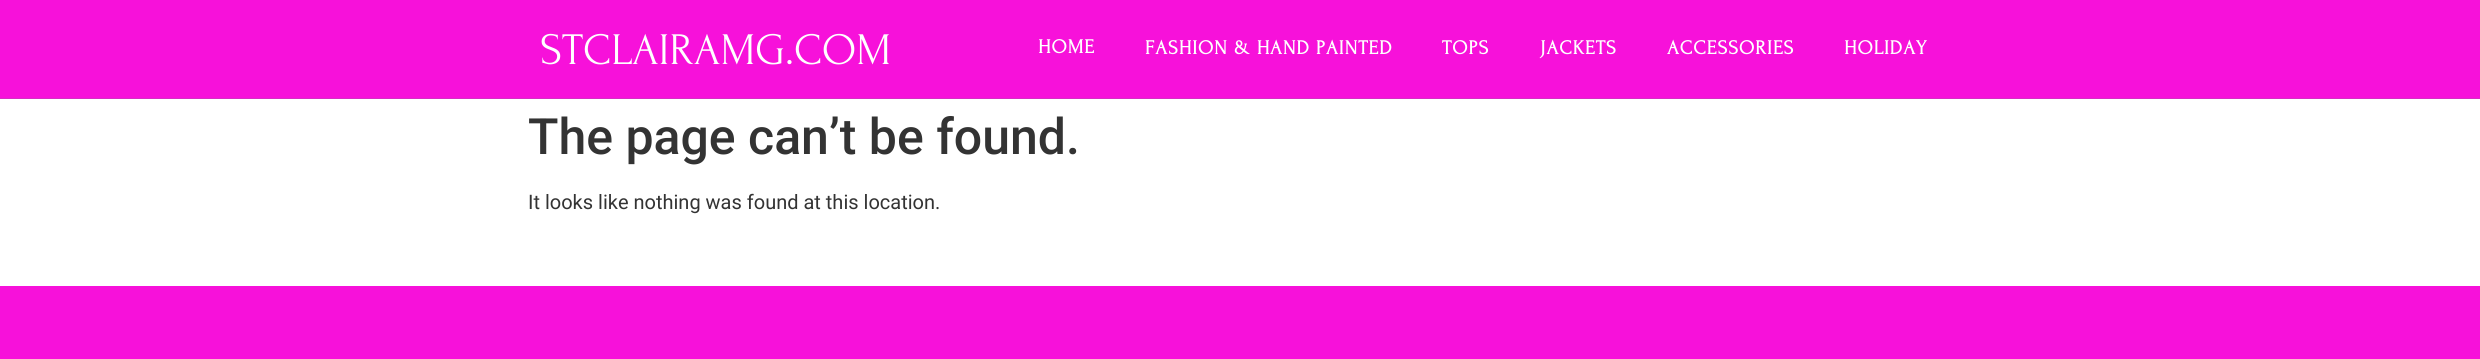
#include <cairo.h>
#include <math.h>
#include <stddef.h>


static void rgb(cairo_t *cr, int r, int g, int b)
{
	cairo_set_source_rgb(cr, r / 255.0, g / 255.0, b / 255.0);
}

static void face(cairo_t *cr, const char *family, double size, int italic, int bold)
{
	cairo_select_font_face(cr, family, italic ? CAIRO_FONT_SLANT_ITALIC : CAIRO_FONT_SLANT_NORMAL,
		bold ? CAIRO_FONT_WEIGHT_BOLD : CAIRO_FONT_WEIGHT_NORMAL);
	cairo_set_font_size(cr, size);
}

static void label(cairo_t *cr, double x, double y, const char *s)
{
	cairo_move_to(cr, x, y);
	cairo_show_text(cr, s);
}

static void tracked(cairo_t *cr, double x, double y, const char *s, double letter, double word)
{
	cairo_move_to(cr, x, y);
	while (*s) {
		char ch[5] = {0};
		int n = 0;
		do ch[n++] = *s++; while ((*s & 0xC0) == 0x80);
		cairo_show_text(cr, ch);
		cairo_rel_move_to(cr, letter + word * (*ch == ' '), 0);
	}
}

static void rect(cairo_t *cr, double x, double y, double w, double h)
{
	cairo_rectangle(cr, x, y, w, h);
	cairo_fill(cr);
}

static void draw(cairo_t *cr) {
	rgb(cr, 255, 255, 255);
	cairo_paint(cr);
	rgb(cr, 247, 17, 218);
	rect(cr, 0, 0, 2480, 98);
	rgb(cr, 217, 45, 196);
	rect(cr, 0, 98, 2480, 1);
	face(cr, "Forum", 45, 0, 0);
	rgb(cr, 255, 255, 255);
	label(cr, 540, 64, "STCLAIRAMG.COM");
	face(cr, "Forum", 20, 0, 1);
	tracked(cr, 1038, 53, "HOME", 1, 0);
	tracked(cr, 1145, 54, "FASHION & HAND PAINTED", 1, 0);
	tracked(cr, 1442, 54, "TOPS", 1, 0);
	tracked(cr, 1540, 54, "JACKETS", 1, 0);
	tracked(cr, 1667, 54, "ACCESSORIES", 1, 0);
	tracked(cr, 1844, 54, "HOLIDAY", 1, 0);
	face(cr, "Roboto Medium", 50, 0, 0);
	rgb(cr, 51, 51, 51);
	label(cr, 528, 154, "The page can’t be found.");
	face(cr, "Roboto", 20, 0, 0);
	label(cr, 528, 209, "It looks like nothing was found at this location.");
	rgb(cr, 247, 17, 218);
	rect(cr, 0, 286, 2480, 73);
}

int main(void) {
	cairo_surface_t *surface = cairo_image_surface_create(CAIRO_FORMAT_RGB24, 2480, 359);
	cairo_t *cr = cairo_create(surface);
	cairo_font_options_t *options = cairo_font_options_create();
	cairo_font_options_set_hint_metrics(options, CAIRO_HINT_METRICS_OFF);
	cairo_font_options_set_hint_style(options, CAIRO_HINT_STYLE_NONE);
	cairo_set_font_options(cr, options);
	cairo_set_miter_limit(cr, 4);
	draw(cr);
	cairo_surface_write_to_png(surface, "render.png");
	cairo_font_options_destroy(options);
	cairo_destroy(cr);
	cairo_surface_destroy(surface);
	return 0;
}
